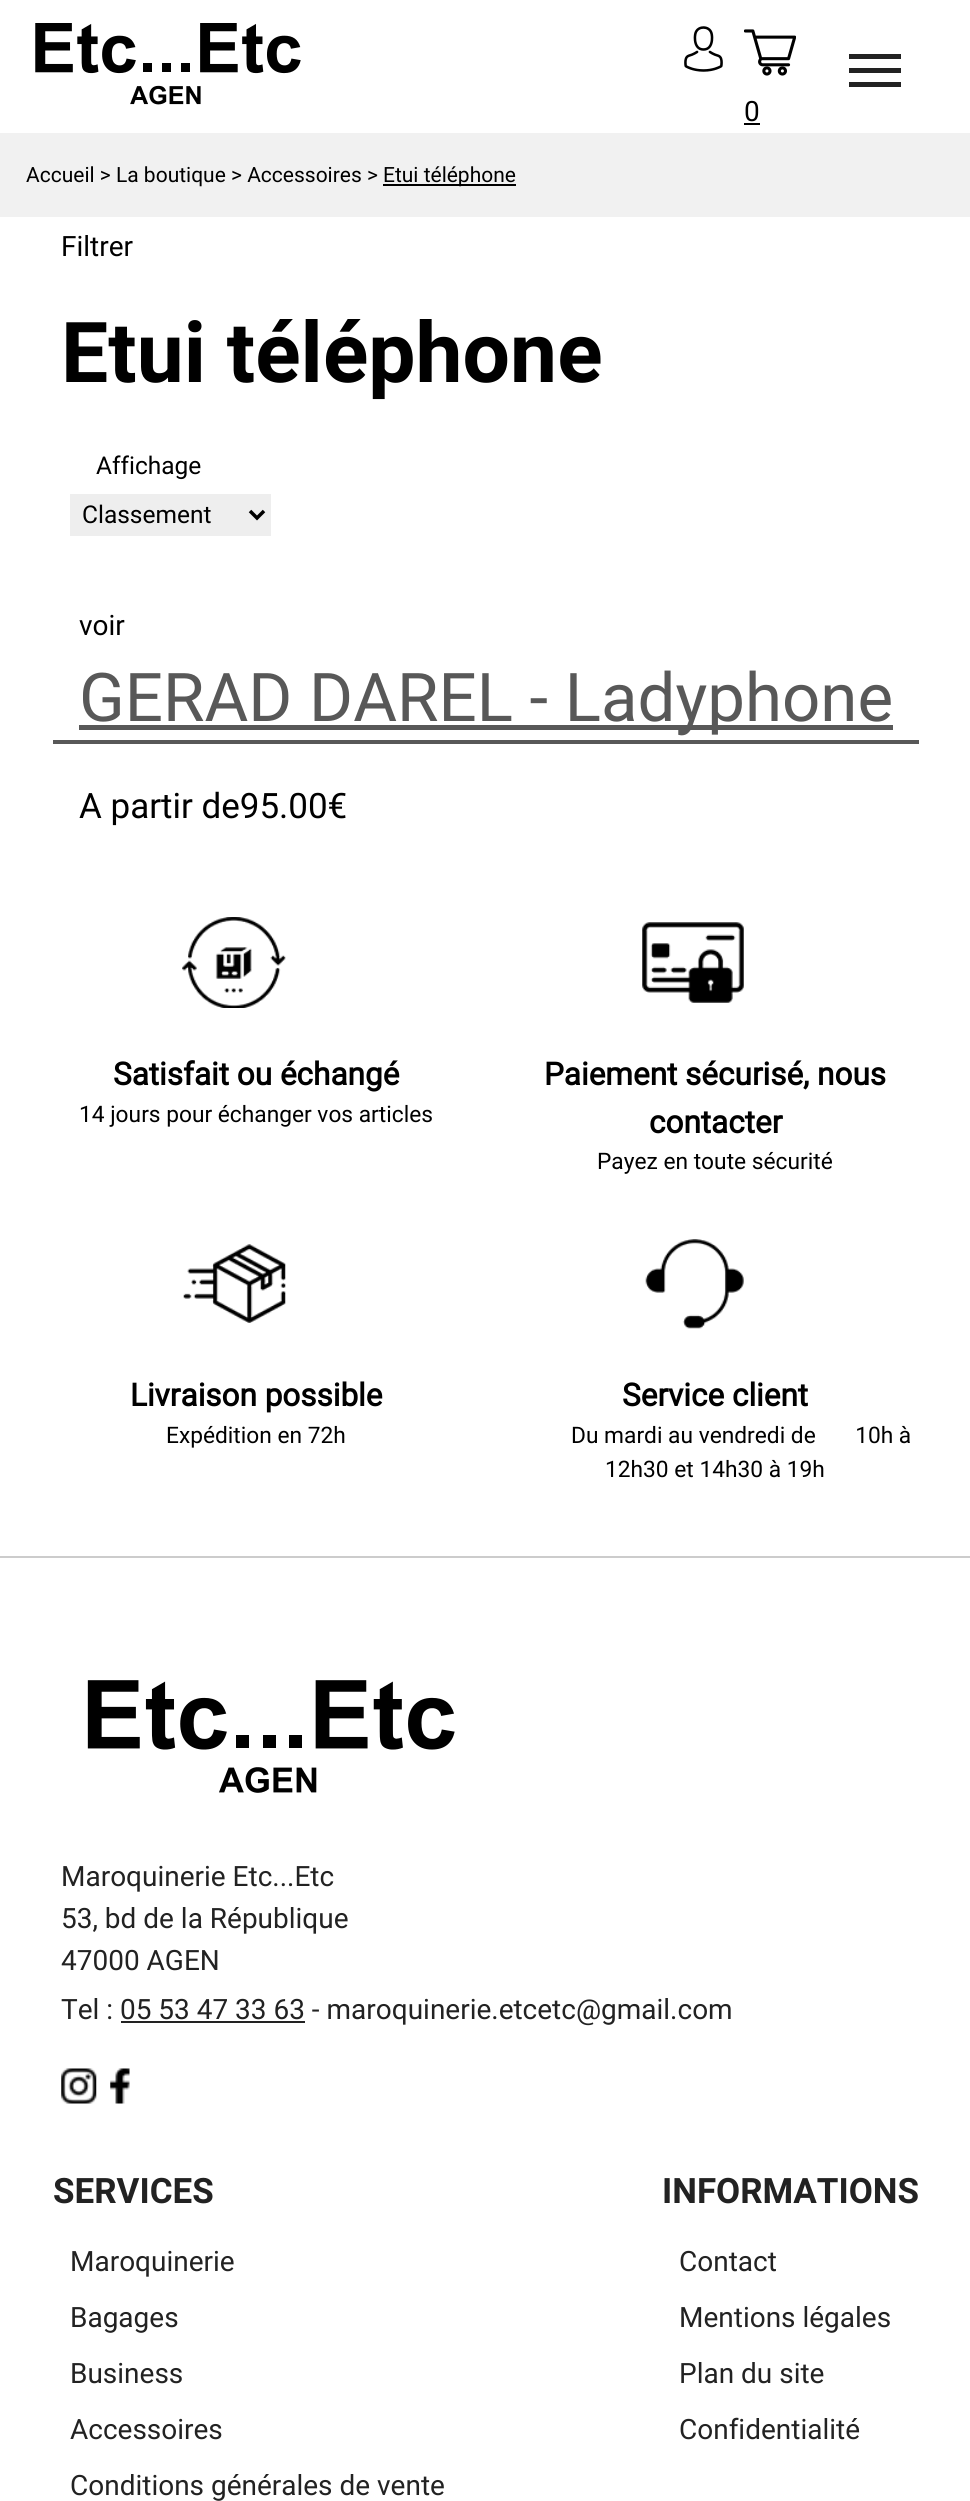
#include <cairo.h>
#include <math.h>
#include <stddef.h>


static void rgb(cairo_t *cr, int r, int g, int b)
{
	cairo_set_source_rgb(cr, r / 255.0, g / 255.0, b / 255.0);
}

static void face(cairo_t *cr, const char *family, double size, int italic, int bold)
{
	cairo_select_font_face(cr, family, italic ? CAIRO_FONT_SLANT_ITALIC : CAIRO_FONT_SLANT_NORMAL,
		bold ? CAIRO_FONT_WEIGHT_BOLD : CAIRO_FONT_WEIGHT_NORMAL);
	cairo_set_font_size(cr, size);
}

static void label(cairo_t *cr, double x, double y, const char *s)
{
	cairo_move_to(cr, x, y);
	cairo_show_text(cr, s);
}

static void rect(cairo_t *cr, double x, double y, double w, double h)
{
	cairo_rectangle(cr, x, y, w, h);
	cairo_fill(cr);
}

static void image(cairo_t *cr, const char *path, double x, double y, double w, double h)
{
	cairo_surface_t *image = cairo_image_surface_create_from_png(path);
	cairo_save(cr);
	cairo_set_source_surface(cr, image, x, y);
	cairo_rectangle(cr, x, y, w, h);
	cairo_fill(cr);
	cairo_restore(cr);
	cairo_surface_destroy(image);
}

static void draw(cairo_t *cr) {
	rgb(cr, 255, 255, 255);
	cairo_paint(cr);
	image(cr, "image0.png", 35, 23, 266, 82);
	rgb(cr, 34, 34, 34);
	rect(cr, 849, 54, 52, 5);
	rect(cr, 849, 68, 52, 5);
	rect(cr, 849, 82, 52, 5);
	image(cr, "image1.png", 684, 26, 39, 46);
	image(cr, "image2.png", 744, 29, 52, 47);
	face(cr, "Roboto", 28, 0, 0);
	rgb(cr, 0, 0, 0);
	label(cr, 744, 121, "0");
	rect(cr, 744, 123, 16, 2);
	rgb(cr, 241, 241, 241);
	rect(cr, 0, 133, 970, 84);
	face(cr, "Roboto", 21, 0, 0);
	rgb(cr, 0, 0, 0);
	label(cr, 26, 182, "Accueil > La boutique > Accessoires >");
	rect(cr, 383, 184, 133, 2);
	label(cr, 383, 182, "Etui téléphone");
	face(cr, "Roboto", 28, 0, 0);
	label(cr, 61, 256, "Filtrer");
	face(cr, "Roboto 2", 84, 0, 1);
	label(cr, 61, 382, "Etui téléphone");
	face(cr, "Roboto", 24.5, 0, 0);
	label(cr, 96, 474, "Affichage");
	rgb(cr, 238, 238, 238);
	rect(cr, 70, 494, 201, 42);
	cairo_new_path(cr);
	cairo_move_to(cr, 250, 511);
	cairo_line_to(cr, 257, 518);
	cairo_line_to(cr, 264, 511);
	rgb(cr, 0, 0, 0);
	cairo_set_line_width(cr, 3.5);
	cairo_stroke(cr);
	label(cr, 82, 523, "Classement");
	face(cr, "Roboto", 28, 0, 0);
	label(cr, 79, 635, "voir");
	rgb(cr, 88, 88, 88);
	rect(cr, 53, 740, 866, 4);
	rect(cr, 79, 725, 814, 5);
	face(cr, "Roboto", 67.25, 0, 0);
	label(cr, 79, 721, "GERAD DAREL - Ladyphone");
	face(cr, "Roboto", 35, 0, 0);
	rgb(cr, 0, 0, 0);
	label(cr, 79, 818, "A partir de95.00€");
	rgb(cr, 204, 204, 204);
	rect(cr, 0, 1556, 970, 2);
	image(cr, "image3.png", 182, 917, 104, 91);
	face(cr, "Roboto", 31.5, 0, 1);
	rgb(cr, 0, 0, 0);
	label(cr, 113, 1085, "Satisfait ou échangé");
	face(cr, "Roboto", 22.75, 0, 0);
	label(cr, 79, 1122, "14 jours pour échanger vos articles");
	image(cr, "image4.png", 642, 922, 102, 81);
	face(cr, "Roboto", 31.5, 0, 1);
	label(cr, 544, 1085, "Paiement sécurisé, nous");
	label(cr, 649, 1133, "contacter");
	face(cr, "Roboto", 22.75, 0, 0);
	label(cr, 597, 1169, "Payez en toute sécurité");
	image(cr, "image5.png", 183, 1244, 103, 79);
	face(cr, "Roboto", 31.5, 0, 1);
	label(cr, 130, 1406, "Livraison possible");
	face(cr, "Roboto", 22.75, 0, 0);
	label(cr, 166, 1443, "Expédition en 72h");
	image(cr, "image6.png", 645, 1239, 99, 90);
	face(cr, "Roboto", 31.5, 0, 1);
	label(cr, 622, 1406, "Service client");
	face(cr, "Roboto", 22.75, 0, 0);
	label(cr, 571, 1443, "Du mardi au vendredi de       10h à");
	label(cr, 605, 1477, "12h30 et 14h30 à 19h");
	image(cr, "image7.png", 87, 1680, 368, 113);
	face(cr, "Roboto", 28, 0, 0);
	rgb(cr, 34, 34, 34);
	label(cr, 61, 1886, "Maroquinerie Etc...Etc");
	label(cr, 61, 1928, "53, bd de la République");
	label(cr, 61, 1970, "47000 AGEN");
	label(cr, 61, 2019, "Tel : 05 53 47 33 63 - maroquinerie.etcetc@gmail.com");
	rect(cr, 121, 2021, 184, 2);
	image(cr, "image8.png", 61, 2068, 36, 36);
	image(cr, "image9.png", 110, 2068, 20, 36);
	face(cr, "Roboto 2", 35, 0, 1);
	label(cr, 53, 2203, "SERVICES");
	face(cr, "Roboto", 28, 0, 0);
	label(cr, 70, 2271, "Maroquinerie");
	label(cr, 70, 2327, "Bagages");
	label(cr, 70, 2383, "Business");
	label(cr, 70, 2439, "Accessoires");
	label(cr, 70, 2495, "Conditions générales de vente");
	face(cr, "Roboto 2", 35, 0, 1);
	label(cr, 662, 2203, "INFORMATIONS");
	face(cr, "Roboto", 28, 0, 0);
	label(cr, 679, 2271, "Contact");
	label(cr, 679, 2327, "Mentions légales");
	label(cr, 679, 2383, "Plan du site");
	label(cr, 679, 2439, "Confidentialité");
}

int main(void) {
	cairo_surface_t *surface = cairo_image_surface_create(CAIRO_FORMAT_RGB24, 970, 2501);
	cairo_t *cr = cairo_create(surface);
	cairo_font_options_t *options = cairo_font_options_create();
	cairo_font_options_set_hint_metrics(options, CAIRO_HINT_METRICS_OFF);
	cairo_font_options_set_hint_style(options, CAIRO_HINT_STYLE_NONE);
	cairo_set_font_options(cr, options);
	cairo_set_miter_limit(cr, 4);
	draw(cr);
	cairo_surface_write_to_png(surface, "render.png");
	cairo_font_options_destroy(options);
	cairo_destroy(cr);
	cairo_surface_destroy(surface);
	return 0;
}
